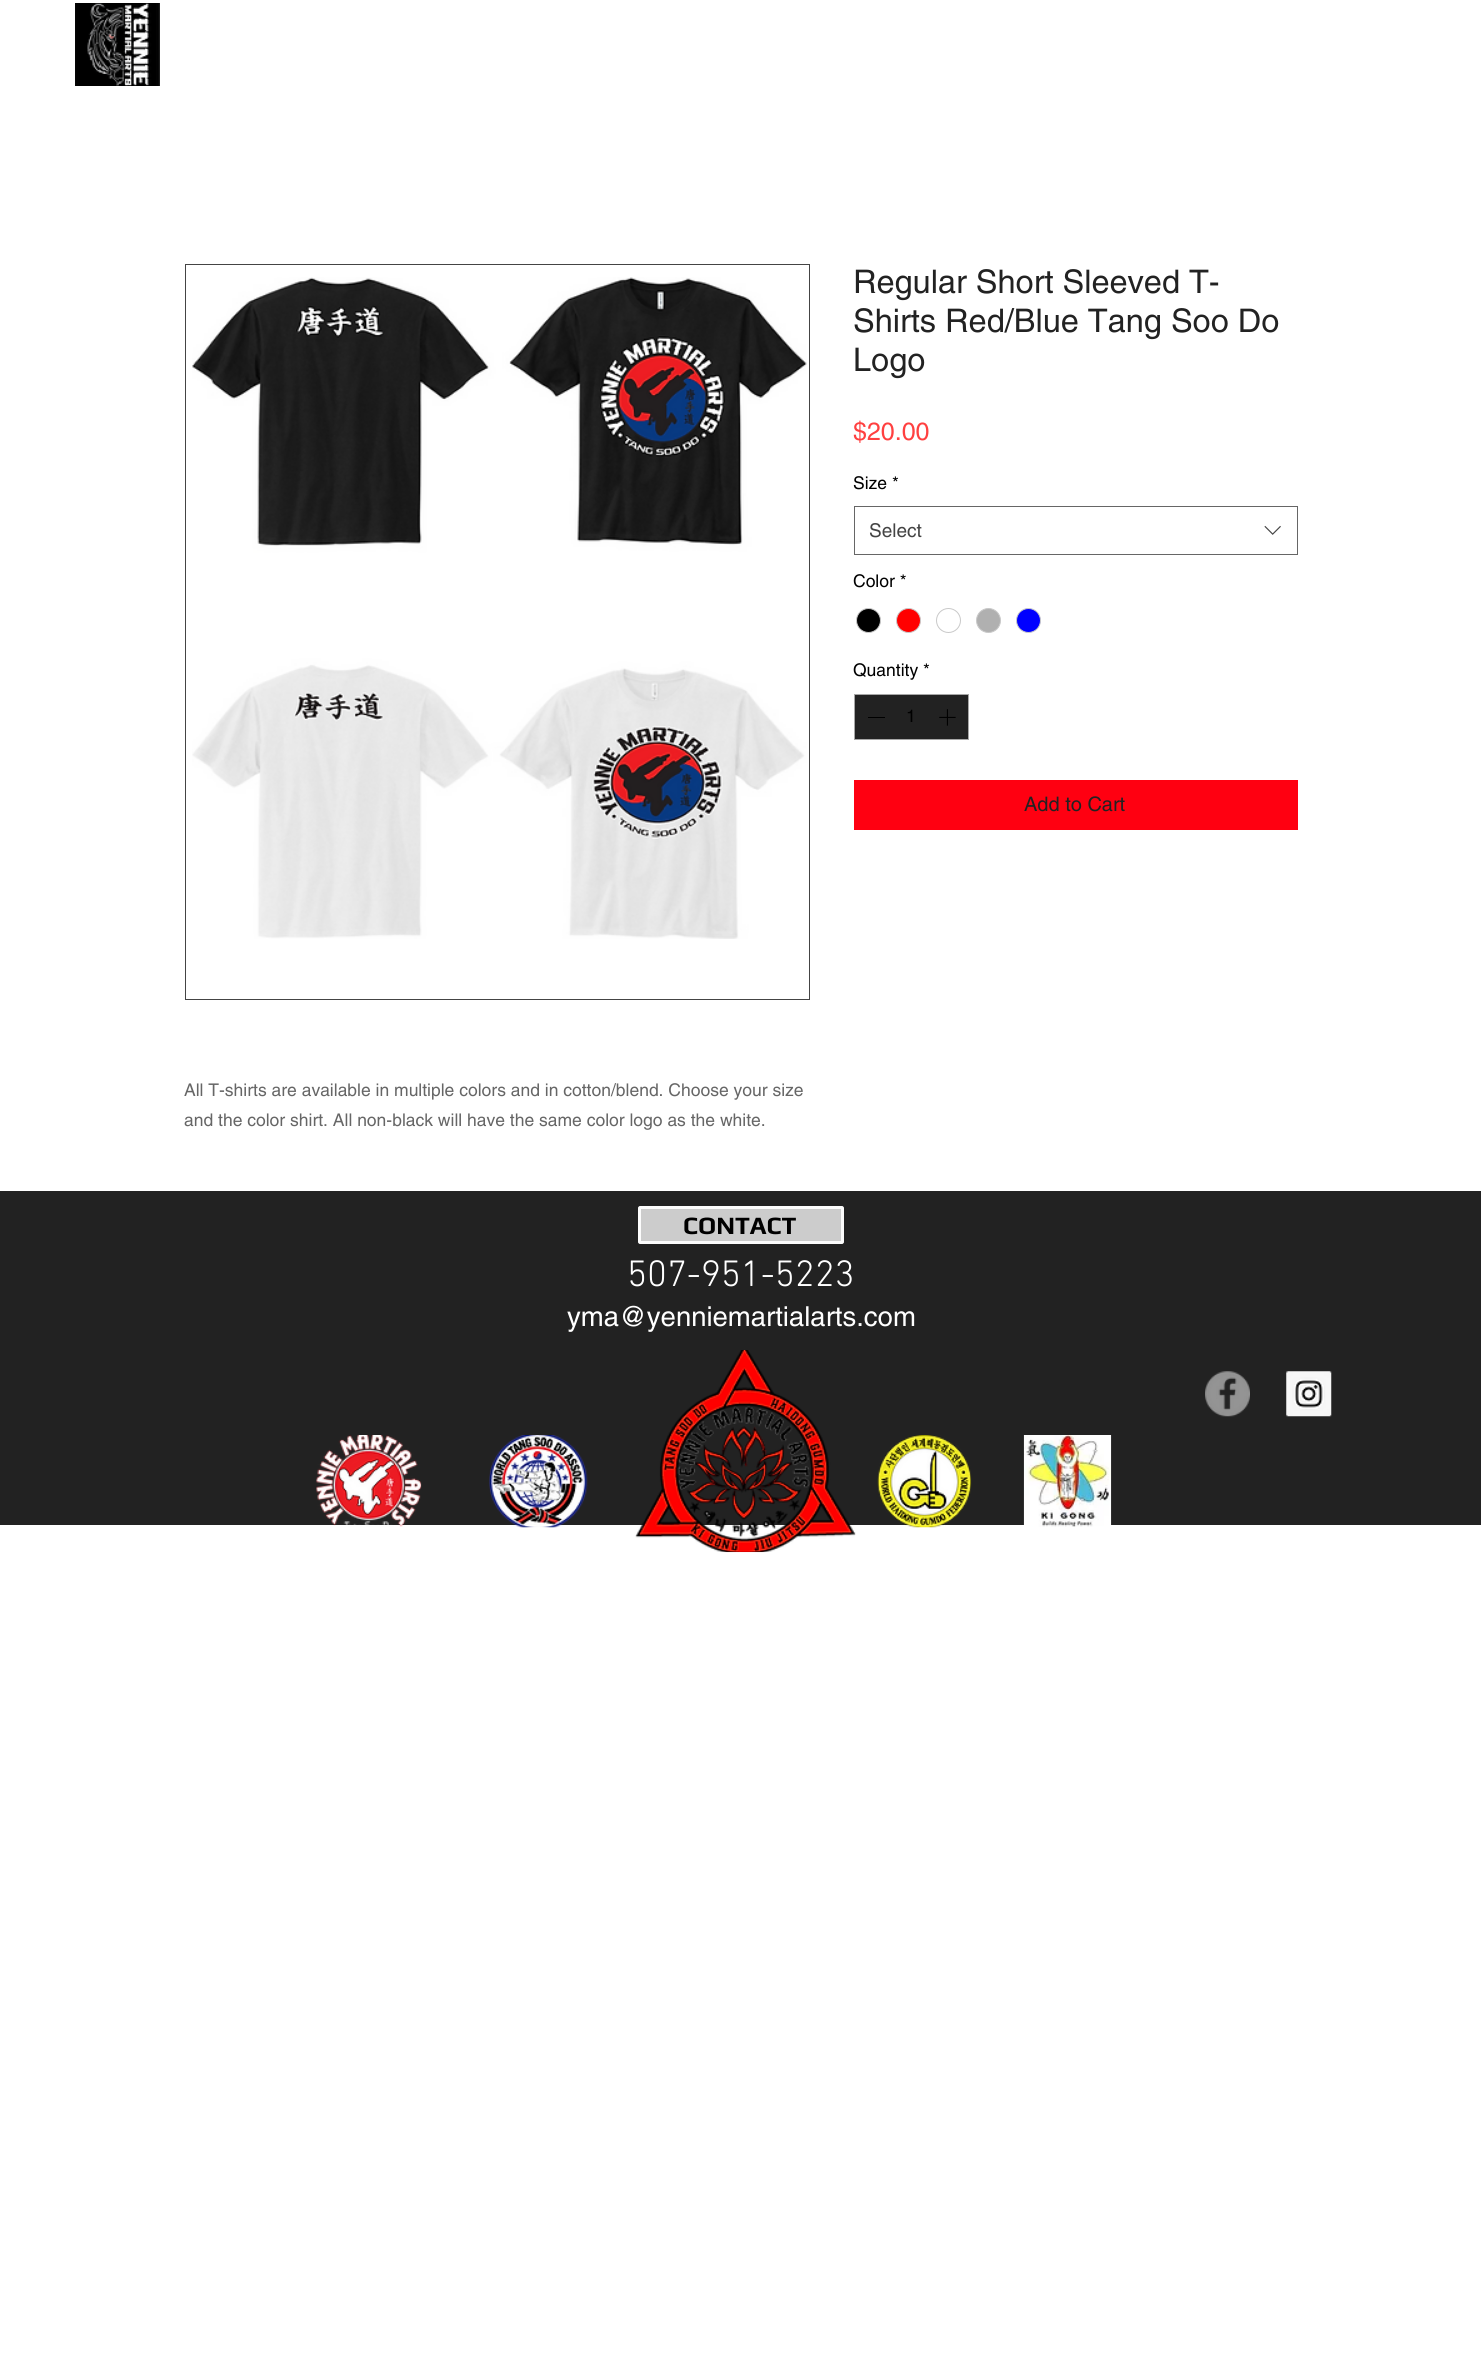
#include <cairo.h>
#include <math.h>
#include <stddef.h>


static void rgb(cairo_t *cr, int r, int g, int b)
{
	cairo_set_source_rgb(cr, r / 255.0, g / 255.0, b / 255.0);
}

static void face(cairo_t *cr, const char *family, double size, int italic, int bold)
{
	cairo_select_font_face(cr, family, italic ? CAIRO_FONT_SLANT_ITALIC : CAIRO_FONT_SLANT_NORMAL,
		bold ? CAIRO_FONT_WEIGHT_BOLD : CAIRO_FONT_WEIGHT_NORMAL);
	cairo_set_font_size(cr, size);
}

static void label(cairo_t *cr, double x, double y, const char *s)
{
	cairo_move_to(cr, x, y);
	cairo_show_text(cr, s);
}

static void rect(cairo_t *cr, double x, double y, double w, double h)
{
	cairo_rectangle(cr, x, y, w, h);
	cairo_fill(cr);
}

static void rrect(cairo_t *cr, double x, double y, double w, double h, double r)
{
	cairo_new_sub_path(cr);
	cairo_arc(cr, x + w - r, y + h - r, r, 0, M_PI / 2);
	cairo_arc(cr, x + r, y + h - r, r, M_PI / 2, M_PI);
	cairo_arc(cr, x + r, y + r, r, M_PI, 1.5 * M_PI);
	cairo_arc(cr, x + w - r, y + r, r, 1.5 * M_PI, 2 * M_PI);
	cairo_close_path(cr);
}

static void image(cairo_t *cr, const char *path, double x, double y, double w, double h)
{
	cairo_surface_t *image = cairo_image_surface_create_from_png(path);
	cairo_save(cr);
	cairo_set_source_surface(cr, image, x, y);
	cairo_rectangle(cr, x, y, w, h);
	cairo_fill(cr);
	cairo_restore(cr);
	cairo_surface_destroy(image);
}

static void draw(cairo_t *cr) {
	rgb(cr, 255, 255, 255);
	cairo_paint(cr);
	image(cr, "image0.png", 75, 3, 85, 83);
	face(cr, "helvetica", 32.5, 0, 0);
	rgb(cr, 34, 34, 34);
	label(cr, 853, 293, "Regular Short Sleeved T-");
	label(cr, 853, 332, "Shirts Red/Blue Tang Soo Do");
	label(cr, 853, 371, "Logo");
	face(cr, "helvetica", 25, 0, 0);
	rgb(cr, 255, 64, 64);
	label(cr, 853, 440, "$20.00");
	face(cr, "helvetica", 17.5, 0, 0);
	rgb(cr, 0, 0, 0);
	label(cr, 853, 489, "Size *");
	cairo_rectangle(cr, 854.5, 506.5, 443, 48);
	rgb(cr, 102, 102, 102);
	cairo_set_line_width(cr, 1);
	cairo_stroke(cr);
	face(cr, "helvetica", 19, 0, 0);
	rgb(cr, 68, 68, 68);
	label(cr, 869, 537, "Select");
	image(cr, "image1.png", 1264, 525, 17, 10);
	face(cr, "helvetica", 17.5, 0, 0);
	rgb(cr, 0, 0, 0);
	label(cr, 853, 587, "Color *");
	cairo_new_path(cr);
	cairo_arc(cr, 868.5, 620.5, 12, 0, 2 * M_PI);
	cairo_fill_preserve(cr);
	rgb(cr, 201, 201, 201);
	cairo_stroke(cr);
	rgb(cr, 255, 0, 0);
	cairo_arc(cr, 908.5, 620.5, 12, 0, 2 * M_PI);
	cairo_fill_preserve(cr);
	rgb(cr, 201, 201, 201);
	cairo_stroke(cr);
	cairo_arc(cr, 948.5, 620.5, 12, 0, 2 * M_PI);
	cairo_stroke(cr);
	rgb(cr, 176, 176, 176);
	cairo_arc(cr, 988.5, 620.5, 12, 0, 2 * M_PI);
	cairo_fill_preserve(cr);
	rgb(cr, 201, 201, 201);
	cairo_stroke(cr);
	rgb(cr, 0, 0, 255);
	cairo_arc(cr, 1028.5, 620.5, 12, 0, 2 * M_PI);
	cairo_fill_preserve(cr);
	rgb(cr, 201, 201, 201);
	cairo_stroke(cr);
	rgb(cr, 0, 0, 0);
	label(cr, 853, 676, "Quantity *");
	rgb(cr, 34, 34, 34);
	cairo_rectangle(cr, 854.5, 694.5, 114, 45);
	cairo_fill_preserve(cr);
	rgb(cr, 167, 167, 167);
	cairo_stroke(cr);
	rgb(cr, 0, 0, 0);
	rect(cr, 868, 717, 17, 1);
	label(cr, 906, 722, "1");
	image(cr, "image2.png", 939, 709, 17, 17);
	rgb(cr, 255, 0, 17);
	rect(cr, 854, 780, 444, 50);
	face(cr, "helvetica", 20, 0, 0);
	rgb(cr, 34, 34, 34);
	label(cr, 1024, 811, "Add to Cart");
	cairo_rectangle(cr, 185.5, 264.5, 624, 735);
	rgb(cr, 68, 68, 68);
	cairo_stroke(cr);
	image(cr, "image3.png", 192, 277, 615, 662);
	face(cr, "helvetica", 17.5, 0, 0);
	rgb(cr, 102, 102, 102);
	label(cr, 184, 1096, "All T-shirts are available in multiple colors and in cotton/blend. Choose your size");
	label(cr, 184, 1126, "and the color shirt. All non-black will have the same color logo as the white.");
	rgb(cr, 34, 34, 34);
	rect(cr, 0, 1191, 1481, 334);
	rgb(cr, 204, 204, 204);
	rrect(cr, 638, 1206, 206, 38, 2.5);
	cairo_fill(cr);
	rrect(cr, 639.5, 1207.5, 203, 35, 1);
	cairo_set_source_rgba(cr, 1, 1, 1, 0.94);
	cairo_set_line_width(cr, 3);
	cairo_stroke(cr);
	face(cr, "Play", 25, 0, 1);
	rgb(cr, 0, 0, 0);
	label(cr, 683, 1234, "CONTACT");
	face(cr, "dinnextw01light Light", 37.5, 0, 0);
	rgb(cr, 255, 255, 255);
	label(cr, 627, 1286, "507-951-5223");
	face(cr, "helvetica", 27.5, 0, 0);
	label(cr, 567, 1326, "yma@yenniemartialarts.com");
	image(cr, "image4.png", 635, 1350, 221, 203);
	image(cr, "image5.png", 1205, 1371, 45, 46);
	image(cr, "image6.png", 1286, 1371, 46, 46);
	image(cr, "image7.png", 316, 1435, 106, 92);
	image(cr, "image8.png", 489, 1435, 99, 93);
	image(cr, "image9.png", 877, 1435, 95, 93);
	image(cr, "image10.png", 1023, 1435, 89, 92);
}

int main(void) {
	cairo_surface_t *surface = cairo_image_surface_create(CAIRO_FORMAT_RGB24, 1481, 2370);
	cairo_t *cr = cairo_create(surface);
	cairo_font_options_t *options = cairo_font_options_create();
	cairo_font_options_set_hint_metrics(options, CAIRO_HINT_METRICS_OFF);
	cairo_font_options_set_hint_style(options, CAIRO_HINT_STYLE_NONE);
	cairo_set_font_options(cr, options);
	cairo_set_miter_limit(cr, 4);
	draw(cr);
	cairo_surface_write_to_png(surface, "render.png");
	cairo_font_options_destroy(options);
	cairo_destroy(cr);
	cairo_surface_destroy(surface);
	return 0;
}
